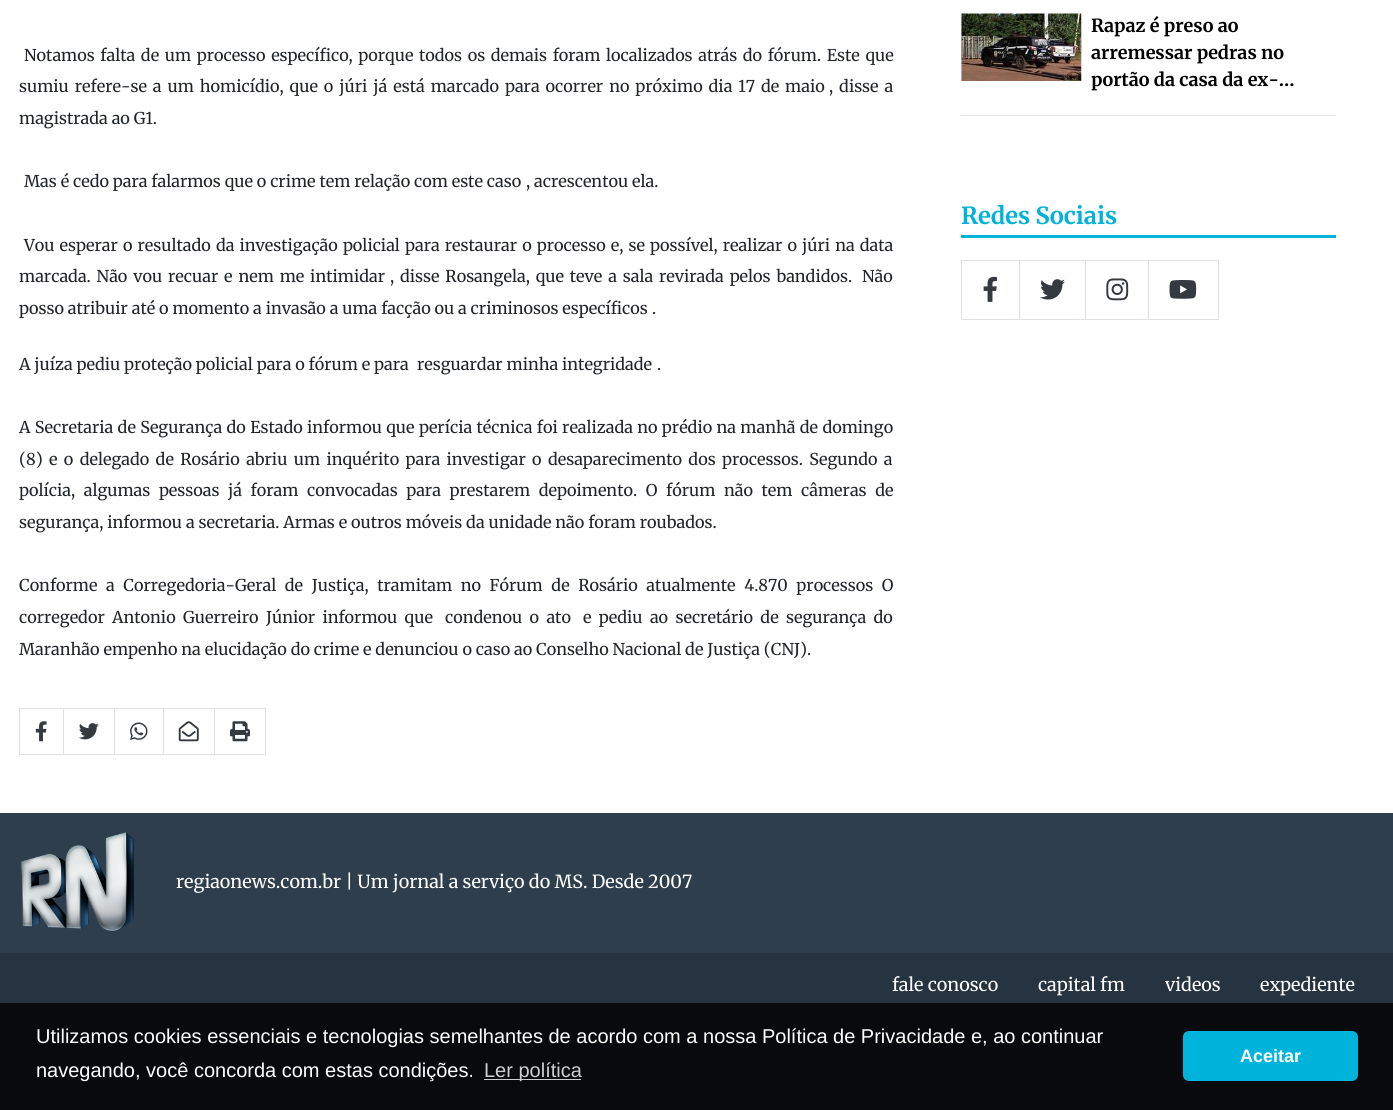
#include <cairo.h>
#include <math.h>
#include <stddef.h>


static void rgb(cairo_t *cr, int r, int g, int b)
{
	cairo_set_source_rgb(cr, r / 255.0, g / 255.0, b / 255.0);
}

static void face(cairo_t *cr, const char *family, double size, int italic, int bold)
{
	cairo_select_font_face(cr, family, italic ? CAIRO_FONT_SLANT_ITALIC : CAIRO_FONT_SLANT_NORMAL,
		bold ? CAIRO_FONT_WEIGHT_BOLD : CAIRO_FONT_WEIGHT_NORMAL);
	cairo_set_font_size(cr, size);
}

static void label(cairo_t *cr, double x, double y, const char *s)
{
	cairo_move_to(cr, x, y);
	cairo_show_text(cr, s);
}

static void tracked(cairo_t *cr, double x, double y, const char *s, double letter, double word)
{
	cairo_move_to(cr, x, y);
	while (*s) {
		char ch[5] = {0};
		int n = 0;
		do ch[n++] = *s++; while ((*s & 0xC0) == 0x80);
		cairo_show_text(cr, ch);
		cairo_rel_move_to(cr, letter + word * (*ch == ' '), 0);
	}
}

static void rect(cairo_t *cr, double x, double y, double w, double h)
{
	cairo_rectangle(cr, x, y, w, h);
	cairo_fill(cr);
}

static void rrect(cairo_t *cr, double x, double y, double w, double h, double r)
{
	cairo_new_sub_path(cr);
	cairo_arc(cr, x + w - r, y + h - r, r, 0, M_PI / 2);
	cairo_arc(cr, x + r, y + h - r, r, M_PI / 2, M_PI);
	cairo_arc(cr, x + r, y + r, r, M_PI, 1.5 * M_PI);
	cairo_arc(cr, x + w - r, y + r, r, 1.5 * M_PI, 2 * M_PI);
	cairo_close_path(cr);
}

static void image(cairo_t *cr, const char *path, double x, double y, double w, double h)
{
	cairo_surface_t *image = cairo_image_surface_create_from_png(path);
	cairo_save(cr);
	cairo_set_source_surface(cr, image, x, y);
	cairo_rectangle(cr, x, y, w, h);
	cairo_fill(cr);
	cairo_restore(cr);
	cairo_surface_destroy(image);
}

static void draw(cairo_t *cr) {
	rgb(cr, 255, 255, 255);
	cairo_paint(cr);
	face(cr, "Merriweather", 16.25, 0, 0);
	rgb(cr, 33, 37, 41);
	tracked(cr, 24, 61, "Notamos falta de um processo específico, porque todos os demais foram localizados atrás do fórum. Este que", 0, 1.75);
	tracked(cr, 19, 92, "sumiu refere-se a um homicídio, que o júri já está marcado para ocorrer no próximo dia 17 de maio", 0, 2.1);
	tracked(cr, 829, 92, ", disse a", 0, 2.1);
	label(cr, 19, 124, "magistrada ao G1.");
	label(cr, 24, 187, "Mas é cedo para falarmos que o crime tem relação com este caso");
	label(cr, 526, 187, ", acrescentou ela.");
	tracked(cr, 24, 251, "Vou esperar o resultado da investigação policial para restaurar o processo e, se possível, realizar o júri na data", 0, 1.25);
	tracked(cr, 19, 282, "marcada. Não vou recuar e nem me intimidar", 0, 2);
	tracked(cr, 390, 282, ", disse Rosangela, que teve a sala revirada pelos bandidos.", 0, 2);
	label(cr, 862, 282, "Não");
	label(cr, 19, 314, "posso atribuir até o momento a invasão a uma facção ou a criminosos específicos");
	label(cr, 652, 314, ".");
	label(cr, 19, 370, "A juíza pediu proteção policial para o fórum e para");
	label(cr, 417, 370, "resguardar minha integridade");
	label(cr, 657, 370, ".");
	tracked(cr, 19, 433, "A Secretaria de Segurança do Estado informou que perícia técnica foi realizada no prédio na manhã de domingo", 0, 0.5);
	tracked(cr, 19, 465, "(8) e o delegado de Rosário abriu um inquérito para investigar o desaparecimento dos processos. Segundo a", 0, 2.5);
	tracked(cr, 19, 496, "polícia, algumas pessoas já foram convocadas para prestarem depoimento. O fórum não tem câmeras de", 0, 4.75);
	label(cr, 19, 528, "segurança, informou a secretaria. Armas e outros móveis da unidade não foram roubados.");
	tracked(cr, 19, 591, "Conforme a Corregedoria-Geral de Justiça, tramitam no Fórum de Rosário atualmente 4.870 processos O", 0, 4.75);
	tracked(cr, 19, 623, "corregedor Antonio Guerreiro Júnior informou que", 0, 3.5);
	tracked(cr, 445, 623, "condenou o ato", 0, 3.5);
	tracked(cr, 583, 623, "e pediu ao secretário de segurança do", 0, 3.5);
	label(cr, 19, 655, "Maranhão empenho na elucidação do crime e denunciou o caso ao Conselho Nacional de Justiça (CNJ).");
	cairo_rectangle(cr, 19.5, 708.5, 44, 46);
	rgb(cr, 222, 226, 230);
	cairo_set_line_width(cr, 1);
	cairo_stroke(cr);
	image(cr, "image0.png", 35, 721, 12, 21);
	cairo_rectangle(cr, 63.5, 708.5, 51, 46);
	cairo_stroke(cr);
	image(cr, "image1.png", 79, 723, 20, 17);
	cairo_rectangle(cr, 114.5, 708.5, 49, 46);
	cairo_stroke(cr);
	image(cr, "image2.png", 130, 722, 18, 18);
	cairo_rectangle(cr, 163.5, 708.5, 51, 46);
	cairo_stroke(cr);
	image(cr, "image3.png", 178, 721, 21, 21);
	cairo_rectangle(cr, 214.5, 708.5, 51, 46);
	cairo_stroke(cr);
	image(cr, "image4.png", 230, 721, 20, 21);
	image(cr, "image5.png", 961, 13, 121, 68);
	face(cr, "Merriweather", 18, 0, 1);
	rgb(cr, 0, 0, 0);
	label(cr, 1091, 32, "Rapaz é preso ao");
	label(cr, 1091, 59, "arremessar pedras no");
	label(cr, 1091, 86, "portão da casa da ex-…");
	rgb(cr, 230, 230, 230);
	rect(cr, 961, 115, 375, 1);
	rgb(cr, 0, 179, 218);
	rect(cr, 961, 235, 375, 3);
	face(cr, "Merriweather", 23.5, 0, 1);
	label(cr, 961, 224, "Redes Sociais");
	cairo_rectangle(cr, 961.5, 260.5, 58, 59);
	rgb(cr, 222, 226, 230);
	cairo_stroke(cr);
	image(cr, "image6.png", 983, 276, 14, 26);
	cairo_rectangle(cr, 1019.5, 260.5, 66, 59);
	cairo_stroke(cr);
	image(cr, "image7.png", 1040, 279, 25, 21);
	cairo_rectangle(cr, 1085.5, 260.5, 63, 59);
	cairo_stroke(cr);
	image(cr, "image8.png", 1106, 278, 23, 23);
	cairo_rectangle(cr, 1148.5, 260.5, 70, 59);
	cairo_stroke(cr);
	image(cr, "image9.png", 1169, 280, 28, 19);
	rgb(cr, 47, 62, 77);
	rect(cr, 0, 813, 1393, 140);
	image(cr, "image10.png", 20, 832, 114, 99);
	face(cr, "Merriweather", 18, 0, 0);
	rgb(cr, 255, 255, 255);
	label(cr, 176, 888, "regiaonews.com.br | Um jornal a serviço do MS. Desde 2007");
	rgb(cr, 38, 51, 64);
	rect(cr, 0, 953, 1393, 157);
	rgb(cr, 255, 255, 255);
	label(cr, 892, 991, "fale conosco");
	label(cr, 1038, 991, "capital fm");
	label(cr, 1165, 991, "videos");
	label(cr, 1260, 991, "expediente");
	cairo_set_source_rgba(cr, 0, 0, 0, 0.8);
	rect(cr, 0, 1003, 1393, 107);
	face(cr, "Liberation Sans", 20, 0, 0);
	rgb(cr, 255, 255, 255);
	label(cr, 36, 1043, "Utilizamos cookies essenciais e tecnologias semelhantes de acordo com a nossa Política de Privacidade e, ao continuar");
	label(cr, 36, 1077, "navegando, você concorda com estas condições.");
	rgb(cr, 206, 206, 207);
	rect(cr, 484, 1079, 97, 1);
	label(cr, 484, 1077, "Ler política");
	rgb(cr, 0, 179, 218);
	rrect(cr, 1183, 1031, 175, 50, 6);
	cairo_fill(cr);
	face(cr, "Liberation Sans", 18, 0, 1);
	rgb(cr, 255, 255, 255);
	label(cr, 1240, 1062, "Aceitar");
}

int main(void) {
	cairo_surface_t *surface = cairo_image_surface_create(CAIRO_FORMAT_RGB24, 1393, 1110);
	cairo_t *cr = cairo_create(surface);
	cairo_font_options_t *options = cairo_font_options_create();
	cairo_font_options_set_hint_metrics(options, CAIRO_HINT_METRICS_OFF);
	cairo_font_options_set_hint_style(options, CAIRO_HINT_STYLE_NONE);
	cairo_set_font_options(cr, options);
	cairo_set_miter_limit(cr, 4);
	draw(cr);
	cairo_surface_write_to_png(surface, "render.png");
	cairo_font_options_destroy(options);
	cairo_destroy(cr);
	cairo_surface_destroy(surface);
	return 0;
}
